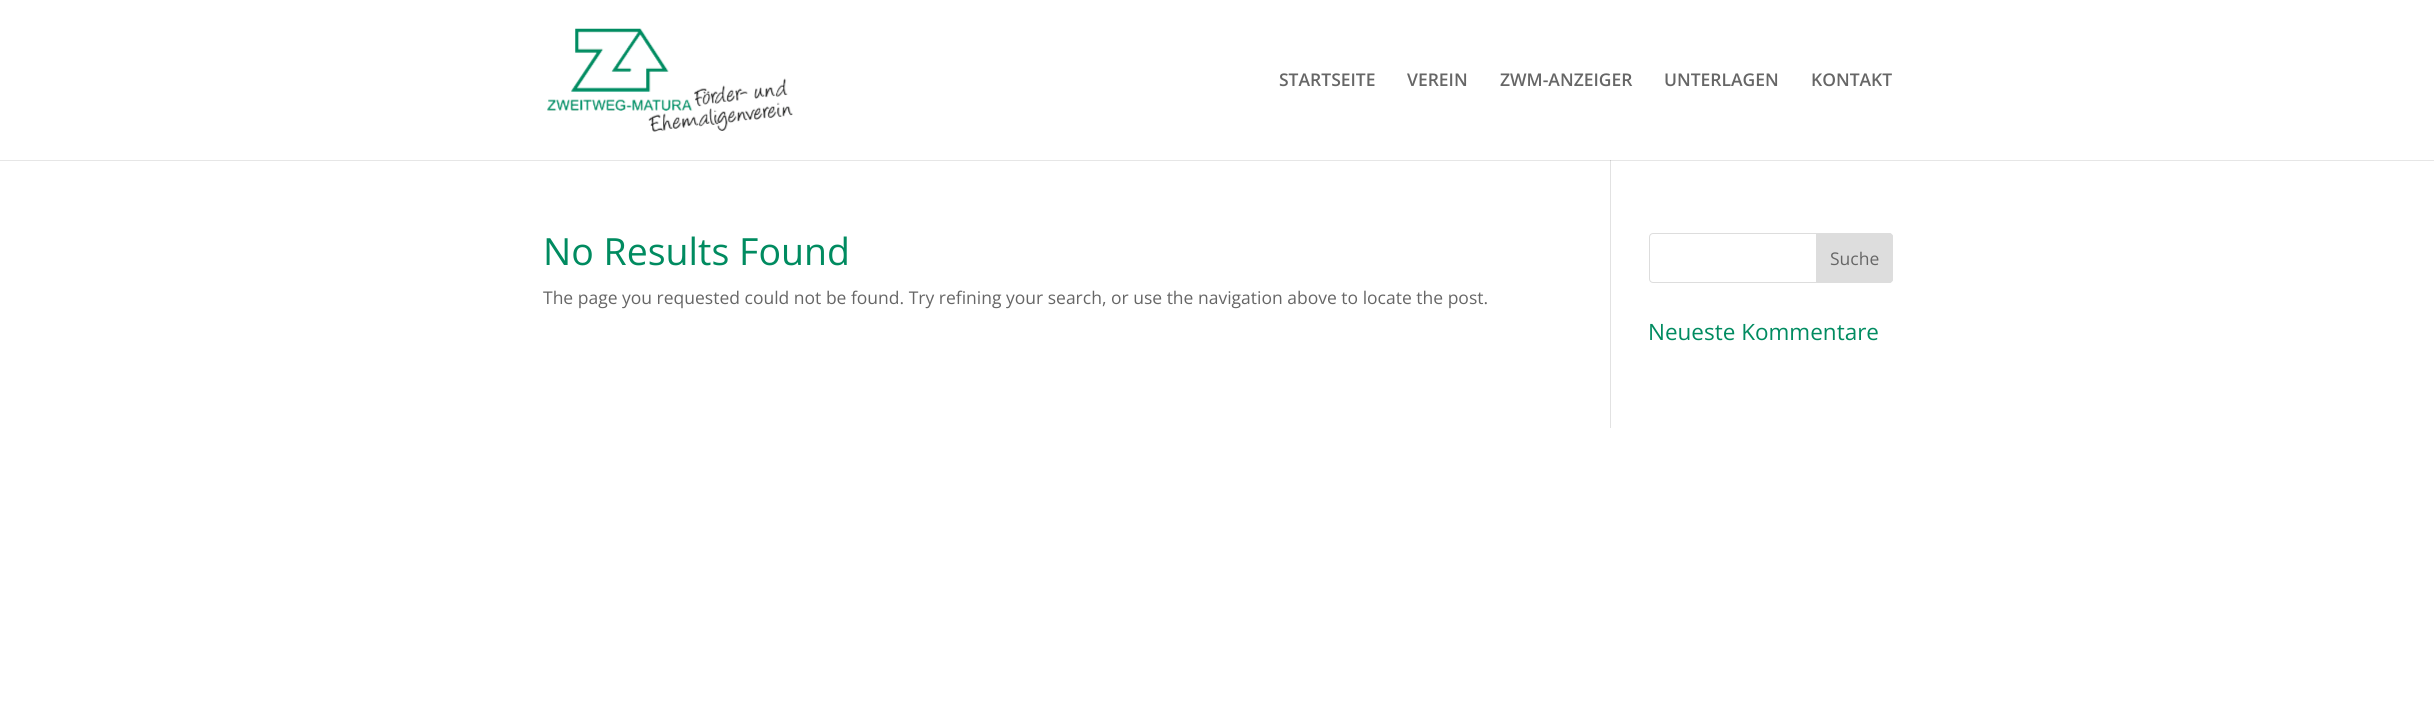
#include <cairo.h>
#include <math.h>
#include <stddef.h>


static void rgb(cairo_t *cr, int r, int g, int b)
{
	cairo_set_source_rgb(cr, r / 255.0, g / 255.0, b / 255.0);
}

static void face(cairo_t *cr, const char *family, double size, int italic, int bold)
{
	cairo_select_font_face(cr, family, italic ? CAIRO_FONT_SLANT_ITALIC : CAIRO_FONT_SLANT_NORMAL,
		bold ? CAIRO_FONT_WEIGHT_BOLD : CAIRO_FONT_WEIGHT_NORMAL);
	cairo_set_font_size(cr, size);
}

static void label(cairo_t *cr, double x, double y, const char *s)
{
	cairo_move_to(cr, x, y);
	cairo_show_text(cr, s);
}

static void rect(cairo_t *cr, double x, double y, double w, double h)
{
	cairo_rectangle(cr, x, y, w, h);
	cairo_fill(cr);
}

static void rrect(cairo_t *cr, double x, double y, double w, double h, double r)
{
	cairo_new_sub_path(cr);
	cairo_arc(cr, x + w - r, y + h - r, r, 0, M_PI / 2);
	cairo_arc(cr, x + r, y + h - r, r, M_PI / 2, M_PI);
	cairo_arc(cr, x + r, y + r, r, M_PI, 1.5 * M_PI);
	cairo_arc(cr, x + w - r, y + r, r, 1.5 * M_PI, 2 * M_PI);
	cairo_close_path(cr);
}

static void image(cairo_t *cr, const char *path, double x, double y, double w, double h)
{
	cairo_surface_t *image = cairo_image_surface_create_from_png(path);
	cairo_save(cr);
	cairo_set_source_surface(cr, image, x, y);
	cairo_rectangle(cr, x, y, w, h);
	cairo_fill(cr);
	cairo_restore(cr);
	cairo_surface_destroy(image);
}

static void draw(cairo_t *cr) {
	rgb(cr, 255, 255, 255);
	cairo_paint(cr);
	rgb(cr, 230, 230, 230);
	rect(cr, 0, 160, 2434, 1);
	image(cr, "image0.png", 547, 28, 246, 104);
	face(cr, "Open Sans SemiBold", 17.5, 0, 0);
	rgb(cr, 102, 102, 102);
	label(cr, 1279, 86, "STARTSEITE");
	label(cr, 1407, 86, "VEREIN");
	label(cr, 1500, 86, "ZWM-ANZEIGER");
	label(cr, 1664, 86, "UNTERLAGEN");
	label(cr, 1811, 86, "KONTAKT");
	rgb(cr, 226, 226, 226);
	rect(cr, 1610, 160, 1, 268);
	rgb(cr, 203, 203, 203);
	rect(cr, 1610, 160, 1, 1);
	face(cr, "Open Sans", 37.5, 0, 0);
	rgb(cr, 0, 139, 96);
	label(cr, 543, 265, "No Results Found");
	face(cr, "Open Sans", 17.5, 0, 0);
	rgb(cr, 102, 102, 102);
	label(cr, 543, 304, "The page you requested could not be found. Try refining your search, or use the navigation above to locate the post.");
	rrect(cr, 1649.5, 233.5, 243, 49, 3.5);
	rgb(cr, 221, 221, 221);
	cairo_set_line_width(cr, 1);
	cairo_stroke(cr);
	cairo_new_path(cr);
	cairo_move_to(cr, 1816.5, 233.5);
	cairo_line_to(cr, 1889, 233.5);
	cairo_curve_to(cr, 1891, 233.5, 1892.5, 235, 1892.5, 237);
	cairo_line_to(cr, 1892.5, 279);
	cairo_curve_to(cr, 1892.5, 281, 1891, 282.5, 1889, 282.5);
	cairo_line_to(cr, 1816.5, 282.5);
	cairo_close_path(cr);
	cairo_fill_preserve(cr);
	cairo_stroke(cr);
	rgb(cr, 102, 102, 102);
	label(cr, 1830, 265, "Suche");
	face(cr, "Open Sans", 22.5, 0, 0);
	rgb(cr, 0, 139, 96);
	label(cr, 1648, 340, "Neueste Kommentare");
}

int main(void) {
	cairo_surface_t *surface = cairo_image_surface_create(CAIRO_FORMAT_RGB24, 2434, 713);
	cairo_t *cr = cairo_create(surface);
	cairo_font_options_t *options = cairo_font_options_create();
	cairo_font_options_set_hint_metrics(options, CAIRO_HINT_METRICS_OFF);
	cairo_font_options_set_hint_style(options, CAIRO_HINT_STYLE_NONE);
	cairo_set_font_options(cr, options);
	cairo_set_miter_limit(cr, 4);
	draw(cr);
	cairo_surface_write_to_png(surface, "render.png");
	cairo_font_options_destroy(options);
	cairo_destroy(cr);
	cairo_surface_destroy(surface);
	return 0;
}
